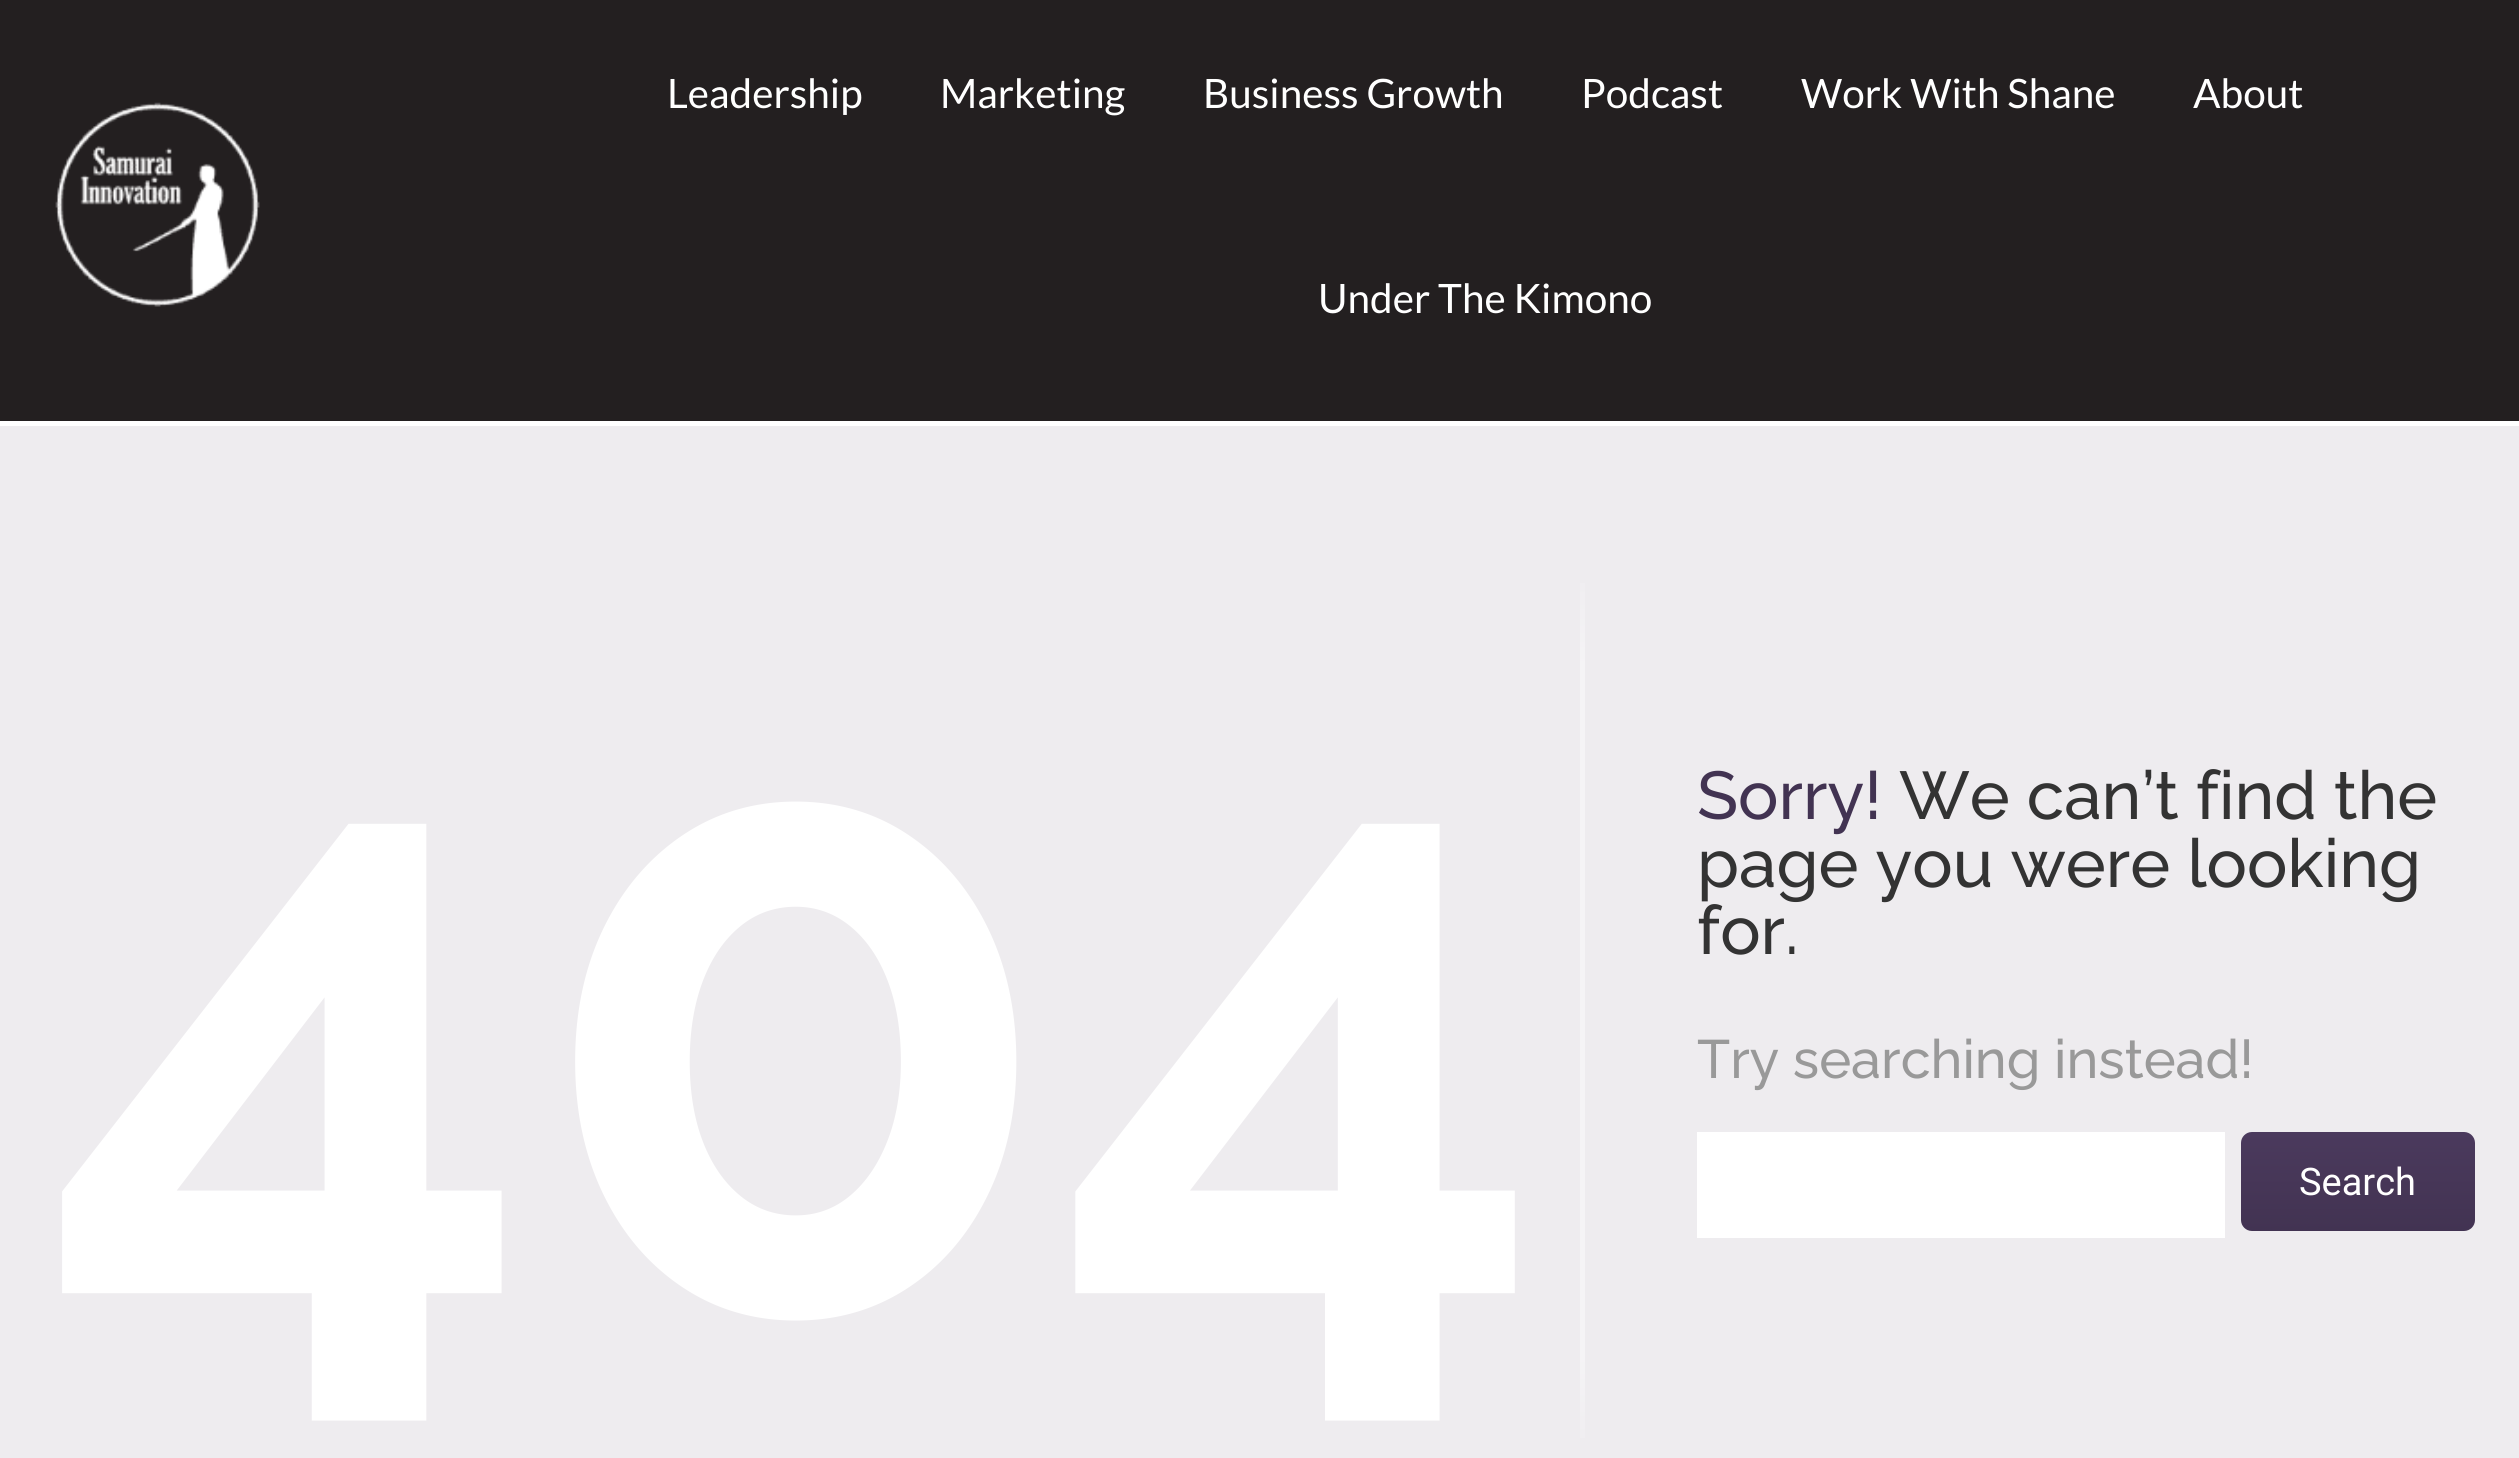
#include <cairo.h>
#include <math.h>
#include <stddef.h>


static void rgb(cairo_t *cr, int r, int g, int b)
{
	cairo_set_source_rgb(cr, r / 255.0, g / 255.0, b / 255.0);
}

static void face(cairo_t *cr, const char *family, double size, int italic, int bold)
{
	cairo_select_font_face(cr, family, italic ? CAIRO_FONT_SLANT_ITALIC : CAIRO_FONT_SLANT_NORMAL,
		bold ? CAIRO_FONT_WEIGHT_BOLD : CAIRO_FONT_WEIGHT_NORMAL);
	cairo_set_font_size(cr, size);
}

static void label(cairo_t *cr, double x, double y, const char *s)
{
	cairo_move_to(cr, x, y);
	cairo_show_text(cr, s);
}

static void rect(cairo_t *cr, double x, double y, double w, double h)
{
	cairo_rectangle(cr, x, y, w, h);
	cairo_fill(cr);
}

static void rrect(cairo_t *cr, double x, double y, double w, double h, double r)
{
	cairo_new_sub_path(cr);
	cairo_arc(cr, x + w - r, y + h - r, r, 0, M_PI / 2);
	cairo_arc(cr, x + r, y + h - r, r, M_PI / 2, M_PI);
	cairo_arc(cr, x + r, y + r, r, M_PI, 1.5 * M_PI);
	cairo_arc(cr, x + w - r, y + r, r, 1.5 * M_PI, 2 * M_PI);
	cairo_close_path(cr);
}

static void image(cairo_t *cr, const char *path, double x, double y, double w, double h)
{
	cairo_surface_t *image = cairo_image_surface_create_from_png(path);
	cairo_save(cr);
	cairo_set_source_surface(cr, image, x, y);
	cairo_rectangle(cr, x, y, w, h);
	cairo_fill(cr);
	cairo_restore(cr);
	cairo_surface_destroy(image);
}

static void draw(cairo_t *cr) {
	cairo_pattern_t *gradient;
	rgb(cr, 35, 31, 32);
	cairo_paint(cr);
	image(cr, "image0.png", 55, 102, 205, 205);
	face(cr, "Lato", 40.5, 0, 0);
	rgb(cr, 255, 255, 255);
	label(cr, 667, 108, "Leadership");
	label(cr, 940, 108, "Marketing");
	label(cr, 1203, 108, "Business Growth");
	label(cr, 1581, 108, "Podcast");
	label(cr, 1801, 108, "Work With Shane");
	label(cr, 2193, 108, "About");
	label(cr, 1318, 313, "Under The Kimono");
	rgb(cr, 238, 236, 239);
	rect(cr, 0, 426, 2519, 1032);
	rgb(cr, 255, 255, 255);
	rect(cr, 0, 421, 2519, 5);
	face(cr, "Raleway", 855, 0, 1);
	label(cr, 45, 1312, "404");
	gradient = cairo_pattern_create_linear(1582, 583, 1582, 1438);
	cairo_pattern_add_color_stop_rgba(gradient, 0, 0.941, 0.933, 0.945, 1);
	cairo_pattern_add_color_stop_rgba(gradient, 0.1, 0.961, 0.957, 0.965, 1);
	cairo_pattern_add_color_stop_rgba(gradient, 0.9, 0.961, 0.957, 0.965, 1);
	cairo_pattern_add_color_stop_rgba(gradient, 1, 0.941, 0.933, 0.945, 1);
	cairo_set_source(cr, gradient);
	cairo_pattern_destroy(gradient);
	rect(cr, 1580, 583, 5, 855);
	face(cr, "Raleway Medium", 67.5, 0, 0);
	rgb(cr, 66, 51, 82);
	label(cr, 1697, 819, "Sorry!");
	rgb(cr, 51, 51, 51);
	label(cr, 1899, 819, "We can’t find the");
	label(cr, 1697, 887, "page you were looking");
	label(cr, 1697, 954, "for.");
	face(cr, "Raleway Medium", 54, 0, 0);
	rgb(cr, 153, 153, 153);
	label(cr, 1697, 1078, "Try searching instead!");
	rgb(cr, 255, 255, 255);
	rect(cr, 1697, 1132, 528, 106);
	gradient = cairo_pattern_create_linear(2358, 1132, 2358, 1231);
	cairo_pattern_add_color_stop_rgba(gradient, 0, 0.294, 0.227, 0.365, 1);
	cairo_pattern_add_color_stop_rgba(gradient, 1, 0.259, 0.2, 0.322, 1);
	cairo_set_source(cr, gradient);
	cairo_pattern_destroy(gradient);
	rrect(cr, 2241, 1132, 234, 99, 11);
	cairo_fill(cr);
	face(cr, "Roboto", 38, 0, 0);
	rgb(cr, 255, 255, 255);
	label(cr, 2299, 1195, "Search");
}

int main(void) {
	cairo_surface_t *surface = cairo_image_surface_create(CAIRO_FORMAT_RGB24, 2519, 1458);
	cairo_t *cr = cairo_create(surface);
	cairo_font_options_t *options = cairo_font_options_create();
	cairo_font_options_set_hint_metrics(options, CAIRO_HINT_METRICS_OFF);
	cairo_font_options_set_hint_style(options, CAIRO_HINT_STYLE_NONE);
	cairo_set_font_options(cr, options);
	cairo_set_miter_limit(cr, 4);
	draw(cr);
	cairo_surface_write_to_png(surface, "render.png");
	cairo_font_options_destroy(options);
	cairo_destroy(cr);
	cairo_surface_destroy(surface);
	return 0;
}
